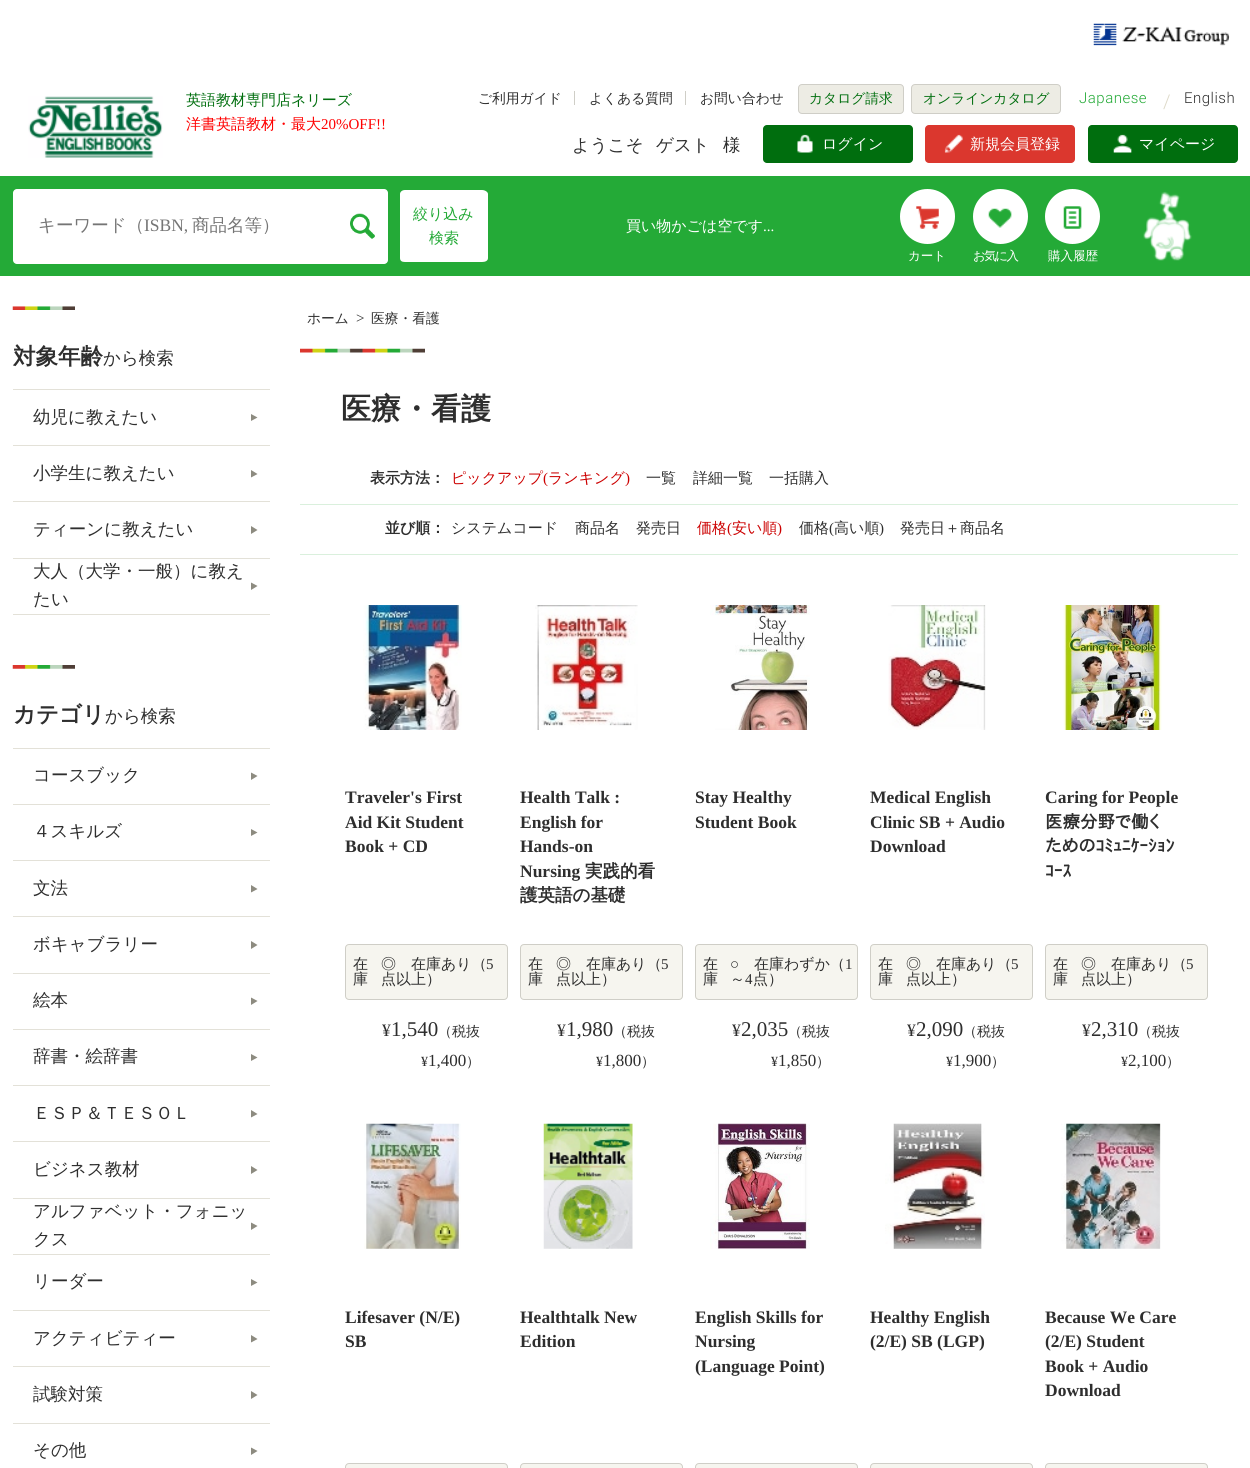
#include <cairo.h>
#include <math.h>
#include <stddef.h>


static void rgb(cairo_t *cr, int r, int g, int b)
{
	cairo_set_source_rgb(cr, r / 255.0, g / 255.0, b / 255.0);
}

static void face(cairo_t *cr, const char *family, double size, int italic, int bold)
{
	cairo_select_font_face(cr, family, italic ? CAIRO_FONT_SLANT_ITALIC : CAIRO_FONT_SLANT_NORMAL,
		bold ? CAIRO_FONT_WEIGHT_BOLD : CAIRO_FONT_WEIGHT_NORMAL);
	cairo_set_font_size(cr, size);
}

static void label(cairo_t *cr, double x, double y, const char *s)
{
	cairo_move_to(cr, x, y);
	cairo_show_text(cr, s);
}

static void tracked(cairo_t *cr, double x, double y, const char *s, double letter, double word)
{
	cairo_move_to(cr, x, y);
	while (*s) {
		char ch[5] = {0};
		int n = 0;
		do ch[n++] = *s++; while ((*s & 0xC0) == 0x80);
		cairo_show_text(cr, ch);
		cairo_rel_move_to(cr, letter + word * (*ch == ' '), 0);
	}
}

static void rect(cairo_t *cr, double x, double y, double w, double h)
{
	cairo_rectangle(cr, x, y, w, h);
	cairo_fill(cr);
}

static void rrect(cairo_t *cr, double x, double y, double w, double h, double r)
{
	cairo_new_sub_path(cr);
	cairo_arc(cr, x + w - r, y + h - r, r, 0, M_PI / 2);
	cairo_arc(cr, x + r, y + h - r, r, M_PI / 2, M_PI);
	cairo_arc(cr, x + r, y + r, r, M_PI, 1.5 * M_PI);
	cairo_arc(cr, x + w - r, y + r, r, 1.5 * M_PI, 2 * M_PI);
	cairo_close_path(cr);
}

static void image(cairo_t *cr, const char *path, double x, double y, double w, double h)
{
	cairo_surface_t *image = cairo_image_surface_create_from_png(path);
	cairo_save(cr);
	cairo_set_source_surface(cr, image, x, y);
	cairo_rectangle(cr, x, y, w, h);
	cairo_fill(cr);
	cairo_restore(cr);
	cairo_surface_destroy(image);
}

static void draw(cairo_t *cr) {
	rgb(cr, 255, 255, 255);
	cairo_paint(cr);
	image(cr, "image0.png", 1093, 23, 137, 23);
	image(cr, "image1.png", 28, 96, 135, 62);
	face(cr, "WenQuanYi Zen Hei Medium", 15, 0, 0);
	rgb(cr, 0, 110, 14);
	label(cr, 186, 105, "英語教材専門店ネリーズ");
	rgb(cr, 255, 0, 0);
	label(cr, 186, 129, "洋書英語教材・最大");
	face(cr, "Liberation Serif", 15, 0, 0);
	label(cr, 321, 129, "20%OFF!!");
	face(cr, "WenQuanYi Zen Hei Medium", 13.75, 0, 0);
	rgb(cr, 46, 46, 46);
	label(cr, 478, 103, "ご利用ガイド");
	rgb(cr, 207, 206, 199);
	rect(cr, 574, 91, 1, 14);
	rgb(cr, 46, 46, 46);
	label(cr, 589, 103, "よくある質問");
	rgb(cr, 207, 206, 199);
	rect(cr, 685, 91, 1, 14);
	rgb(cr, 46, 46, 46);
	label(cr, 700, 103, "お問い合わせ");
	rgb(cr, 237, 236, 228);
	rrect(cr, 798.5, 84.5, 105, 29, 3.5);
	cairo_fill_preserve(cr);
	rgb(cr, 207, 206, 199);
	cairo_set_line_width(cr, 1);
	cairo_stroke(cr);
	rgb(cr, 0, 110, 14);
	label(cr, 809, 103, "カタログ請求");
	rgb(cr, 237, 236, 228);
	rrect(cr, 911.5, 84.5, 149, 29, 3.5);
	cairo_fill_preserve(cr);
	rgb(cr, 207, 206, 199);
	cairo_stroke(cr);
	rgb(cr, 0, 110, 14);
	label(cr, 923, 103, "オンラインカタログ");
	face(cr, "Roboto Light", 15, 0, 0);
	rgb(cr, 36, 170, 55);
	tracked(cr, 1079, 103, "Japanese", 0.5, 0);
	face(cr, "Roboto Light", 19, 0, 0);
	rgb(cr, 221, 217, 200);
	tracked(cr, 1163, 108, "/", 0.5, 0);
	face(cr, "Roboto Light", 15, 0, 0);
	rgb(cr, 46, 46, 46);
	tracked(cr, 1184, 103, "English", 0.5, 0);
	face(cr, "WenQuanYi Zen Hei Medium", 17.5, 0, 0);
	label(cr, 572, 151, "ようこそ");
	label(cr, 656, 151, "ゲスト");
	label(cr, 723, 151, "様");
	rgb(cr, 0, 110, 14);
	rrect(cr, 763, 125, 150, 38, 4);
	cairo_fill(cr);
	image(cr, "image2.png", 797, 134, 16, 19);
	face(cr, "WenQuanYi Zen Hei Medium", 15, 0, 0);
	rgb(cr, 255, 255, 255);
	label(cr, 822, 149, "ログイン");
	rgb(cr, 219, 55, 46);
	rrect(cr, 925, 125, 150, 38, 4);
	cairo_fill(cr);
	image(cr, "image3.png", 944, 134, 19, 19);
	rgb(cr, 255, 255, 255);
	label(cr, 970, 149, "新規会員登録");
	rgb(cr, 0, 110, 14);
	rrect(cr, 1088, 125, 150, 38, 4);
	cairo_fill(cr);
	image(cr, "image4.png", 1113, 134, 19, 19);
	rgb(cr, 255, 255, 255);
	label(cr, 1139, 149, "マイページ");
	rgb(cr, 36, 170, 55);
	rect(cr, 0, 176, 1250, 100);
	image(cr, "image5.png", 1143, 191, 49, 70);
	rgb(cr, 255, 255, 255);
	rrect(cr, 13, 189, 375, 75, 4);
	cairo_fill(cr);
	face(cr, "WenQuanYi Zen Hei Medium", 17.5, 0, 0);
	rgb(cr, 117, 117, 117);
	label(cr, 38, 231, "キーワード（");
	face(cr, "Liberation Serif", 17.5, 0, 0);
	label(cr, 144, 231, "ISBN,");
	face(cr, "WenQuanYi Zen Hei Medium", 17.5, 0, 0);
	label(cr, 192, 231, "商品名等）");
	image(cr, "image6.png", 350, 213, 25, 26);
	rgb(cr, 255, 255, 255);
	cairo_new_path(cr);
	cairo_move_to(cr, 405, 190);
	cairo_line_to(cr, 482, 190);
	cairo_curve_to(cr, 485, 190, 488, 192, 488, 194);
	cairo_line_to(cr, 488, 258);
	cairo_curve_to(cr, 488, 261, 485, 262, 482, 262);
	cairo_line_to(cr, 405, 262);
	cairo_curve_to(cr, 402, 262, 400, 261, 400, 258);
	cairo_line_to(cr, 400, 194);
	cairo_curve_to(cr, 400, 192, 402, 190, 405, 190);
	cairo_close_path(cr);
	cairo_fill(cr);
	face(cr, "WenQuanYi Zen Hei Medium", 15, 0, 0);
	rgb(cr, 36, 170, 55);
	label(cr, 413, 219, "絞り込み");
	label(cr, 429, 243, "検索");
	rgb(cr, 255, 255, 255);
	label(cr, 626, 231, "買い物かごは空です");
	face(cr, "Liberation Serif", 15, 0, 0);
	label(cr, 763, 231, "...");
	cairo_new_path(cr);
	cairo_arc(cr, 927.5, 216.5, 27.5, 0, 2 * M_PI);
	cairo_fill(cr);
	image(cr, "image7.png", 916, 206, 23, 23);
	face(cr, "WenQuanYi Zen Hei Medium", 12.5, 0, 0);
	label(cr, 908, 260, "カート");
	cairo_new_path(cr);
	cairo_arc(cr, 1000.5, 216.5, 27.5, 0, 2 * M_PI);
	cairo_fill(cr);
	image(cr, "image8.png", 988, 208, 24, 20);
	tracked(cr, 973, 260, "お気に入", -1.5, 0);
	cairo_new_path(cr);
	cairo_arc(cr, 1072.5, 216.5, 27.5, 0, 2 * M_PI);
	cairo_fill(cr);
	image(cr, "image9.png", 1063, 206, 19, 23);
	label(cr, 1048, 260, "購入履歴");
	image(cr, "image10.png", 12, 306, 63, 4);
	face(cr, "WenQuanYi Zen Hei", 22.5, 0, 1);
	rgb(cr, 46, 46, 46);
	label(cr, 13, 364, "対象年齢");
	face(cr, "WenQuanYi Zen Hei Medium", 17.5, 0, 0);
	label(cr, 103, 364, "から検索");
	rgb(cr, 227, 225, 216);
	rect(cr, 13, 389, 257, 1);
	rect(cr, 13, 445, 257, 1);
	rgb(cr, 46, 46, 46);
	label(cr, 33, 423, "幼児に教えたい");
	rgb(cr, 141, 139, 128);
	cairo_new_path(cr);
	cairo_move_to(cr, 251, 421);
	cairo_line_to(cr, 251, 414);
	cairo_line_to(cr, 257.5, 417.5);
	cairo_close_path(cr);
	cairo_fill(cr);
	rgb(cr, 227, 225, 216);
	rect(cr, 13, 501, 257, 1);
	rgb(cr, 46, 46, 46);
	label(cr, 33, 479, "小学生に教えたい");
	rgb(cr, 141, 139, 128);
	cairo_new_path(cr);
	cairo_move_to(cr, 251, 477.5);
	cairo_line_to(cr, 251, 470);
	cairo_line_to(cr, 257.5, 474);
	cairo_close_path(cr);
	cairo_fill(cr);
	rgb(cr, 227, 225, 216);
	rect(cr, 13, 558, 257, 1);
	rgb(cr, 46, 46, 46);
	label(cr, 33, 535, "ティーンに教えたい");
	rgb(cr, 141, 139, 128);
	cairo_new_path(cr);
	cairo_move_to(cr, 251, 534);
	cairo_line_to(cr, 251, 526);
	cairo_line_to(cr, 257.5, 530);
	cairo_close_path(cr);
	cairo_fill(cr);
	rgb(cr, 227, 225, 216);
	rect(cr, 13, 614, 257, 1);
	rgb(cr, 46, 46, 46);
	label(cr, 33, 577, "大人（大学・一般）に教え");
	rgb(cr, 141, 139, 128);
	cairo_new_path(cr);
	cairo_move_to(cr, 251, 590);
	cairo_line_to(cr, 251, 582.5);
	cairo_line_to(cr, 257.5, 586);
	cairo_close_path(cr);
	cairo_fill(cr);
	rgb(cr, 46, 46, 46);
	label(cr, 33, 605, "たい");
	image(cr, "image11.png", 12, 665, 63, 4);
	face(cr, "WenQuanYi Zen Hei", 22.5, 0, 1);
	label(cr, 13, 722, "カテゴリ");
	face(cr, "WenQuanYi Zen Hei Medium", 17.5, 0, 0);
	label(cr, 105, 722, "から検索");
	rgb(cr, 227, 225, 216);
	rect(cr, 13, 748, 257, 1);
	rect(cr, 13, 804, 257, 1);
	rgb(cr, 46, 46, 46);
	label(cr, 33, 781, "コースブック");
	rgb(cr, 141, 139, 128);
	cairo_new_path(cr);
	cairo_move_to(cr, 251, 780);
	cairo_line_to(cr, 251, 772.5);
	cairo_line_to(cr, 257.5, 776);
	cairo_close_path(cr);
	cairo_fill(cr);
	rgb(cr, 227, 225, 216);
	rect(cr, 13, 860, 257, 1);
	rgb(cr, 46, 46, 46);
	label(cr, 33, 837, "４スキルズ");
	rgb(cr, 141, 139, 128);
	cairo_new_path(cr);
	cairo_move_to(cr, 251, 836);
	cairo_line_to(cr, 251, 829);
	cairo_line_to(cr, 257.5, 832.5);
	cairo_close_path(cr);
	cairo_fill(cr);
	rgb(cr, 227, 225, 216);
	rect(cr, 13, 916, 257, 1);
	rgb(cr, 46, 46, 46);
	label(cr, 33, 894, "文法");
	rgb(cr, 141, 139, 128);
	cairo_new_path(cr);
	cairo_move_to(cr, 251, 892.5);
	cairo_line_to(cr, 251, 885);
	cairo_line_to(cr, 257.5, 889);
	cairo_close_path(cr);
	cairo_fill(cr);
	rgb(cr, 227, 225, 216);
	rect(cr, 13, 973, 257, 1);
	rgb(cr, 46, 46, 46);
	label(cr, 33, 950, "ボキャブラリー");
	rgb(cr, 141, 139, 128);
	cairo_new_path(cr);
	cairo_move_to(cr, 251, 949);
	cairo_line_to(cr, 251, 941);
	cairo_line_to(cr, 257.5, 945);
	cairo_close_path(cr);
	cairo_fill(cr);
	rgb(cr, 227, 225, 216);
	rect(cr, 13, 1029, 257, 1);
	rgb(cr, 46, 46, 46);
	label(cr, 33, 1006, "絵本");
	rgb(cr, 141, 139, 128);
	cairo_new_path(cr);
	cairo_move_to(cr, 251, 1005);
	cairo_line_to(cr, 251, 997.5);
	cairo_line_to(cr, 257.5, 1001);
	cairo_close_path(cr);
	cairo_fill(cr);
	rgb(cr, 227, 225, 216);
	rect(cr, 13, 1085, 257, 1);
	rgb(cr, 46, 46, 46);
	label(cr, 33, 1062, "辞書・絵辞書");
	rgb(cr, 141, 139, 128);
	cairo_new_path(cr);
	cairo_move_to(cr, 251, 1061);
	cairo_line_to(cr, 251, 1054);
	cairo_line_to(cr, 257.5, 1057.5);
	cairo_close_path(cr);
	cairo_fill(cr);
	rgb(cr, 227, 225, 216);
	rect(cr, 13, 1141, 257, 1);
	rgb(cr, 46, 46, 46);
	label(cr, 33, 1119, "ＥＳＰ＆ＴＥＳＯＬ");
	rgb(cr, 141, 139, 128);
	cairo_new_path(cr);
	cairo_move_to(cr, 251, 1117.5);
	cairo_line_to(cr, 251, 1110);
	cairo_line_to(cr, 257.5, 1114);
	cairo_close_path(cr);
	cairo_fill(cr);
	rgb(cr, 227, 225, 216);
	rect(cr, 13, 1198, 257, 1);
	rgb(cr, 46, 46, 46);
	label(cr, 33, 1175, "ビジネス教材");
	rgb(cr, 141, 139, 128);
	cairo_new_path(cr);
	cairo_move_to(cr, 251, 1174);
	cairo_line_to(cr, 251, 1166);
	cairo_line_to(cr, 257.5, 1170);
	cairo_close_path(cr);
	cairo_fill(cr);
	rgb(cr, 227, 225, 216);
	rect(cr, 13, 1254, 257, 1);
	rgb(cr, 46, 46, 46);
	label(cr, 33, 1217, "アルファベット・フォニッ");
	rgb(cr, 141, 139, 128);
	cairo_new_path(cr);
	cairo_move_to(cr, 251, 1230);
	cairo_line_to(cr, 251, 1222.5);
	cairo_line_to(cr, 257.5, 1226);
	cairo_close_path(cr);
	cairo_fill(cr);
	rgb(cr, 46, 46, 46);
	label(cr, 33, 1245, "クス");
	rgb(cr, 227, 225, 216);
	rect(cr, 13, 1310, 257, 1);
	rgb(cr, 46, 46, 46);
	label(cr, 33, 1287, "リーダー");
	rgb(cr, 141, 139, 128);
	cairo_new_path(cr);
	cairo_move_to(cr, 251, 1286);
	cairo_line_to(cr, 251, 1279);
	cairo_line_to(cr, 257.5, 1282.5);
	cairo_close_path(cr);
	cairo_fill(cr);
	rgb(cr, 227, 225, 216);
	rect(cr, 13, 1366, 257, 1);
	rgb(cr, 46, 46, 46);
	label(cr, 33, 1344, "アクティビティー");
	rgb(cr, 141, 139, 128);
	cairo_new_path(cr);
	cairo_move_to(cr, 251, 1342.5);
	cairo_line_to(cr, 251, 1335);
	cairo_line_to(cr, 257.5, 1339);
	cairo_close_path(cr);
	cairo_fill(cr);
	rgb(cr, 227, 225, 216);
	rect(cr, 13, 1423, 257, 1);
	rgb(cr, 46, 46, 46);
	label(cr, 33, 1400, "試験対策");
	rgb(cr, 141, 139, 128);
	cairo_new_path(cr);
	cairo_move_to(cr, 251, 1399);
	cairo_line_to(cr, 251, 1391);
	cairo_line_to(cr, 257.5, 1395);
	cairo_close_path(cr);
	cairo_fill(cr);
	rgb(cr, 46, 46, 46);
	label(cr, 33, 1456, "その他");
	rgb(cr, 141, 139, 128);
	cairo_new_path(cr);
	cairo_move_to(cr, 251, 1455);
	cairo_line_to(cr, 251, 1447.5);
	cairo_line_to(cr, 257.5, 1451);
	cairo_close_path(cr);
	cairo_fill(cr);
	face(cr, "WenQuanYi Zen Hei Medium", 13.75, 0, 0);
	rgb(cr, 46, 46, 46);
	label(cr, 307, 323, "ホーム");
	face(cr, "Liberation Serif", 15, 0, 0);
	label(cr, 356, 323, ">");
	face(cr, "WenQuanYi Zen Hei Medium", 13.75, 0, 0);
	label(cr, 371, 323, "医療・看護");
	image(cr, "image12.png", 300, 348, 125, 5);
	face(cr, "WenQuanYi Zen Hei", 30, 0, 1);
	label(cr, 341, 419, "医療・看護");
	rgb(cr, 218, 240, 221);
	rect(cr, 300, 504, 938, 1);
	face(cr, "WenQuanYi Zen Hei", 15, 0, 1);
	rgb(cr, 46, 46, 46);
	label(cr, 370, 483, "表示方法：");
	face(cr, "WenQuanYi Zen Hei Medium", 15, 0, 0);
	rgb(cr, 204, 0, 0);
	label(cr, 451, 483, "ピックアップ");
	face(cr, "Liberation Serif", 15, 0, 0);
	label(cr, 543, 483, "(");
	face(cr, "WenQuanYi Zen Hei Medium", 15, 0, 0);
	label(cr, 548, 483, "ランキング");
	face(cr, "Liberation Serif", 15, 0, 0);
	label(cr, 625, 483, ")");
	face(cr, "WenQuanYi Zen Hei Medium", 15, 0, 0);
	rgb(cr, 46, 46, 46);
	label(cr, 646, 483, "一覧");
	label(cr, 693, 483, "詳細一覧");
	label(cr, 769, 483, "一括購入");
	rgb(cr, 218, 240, 221);
	rect(cr, 300, 554, 938, 1);
	face(cr, "WenQuanYi Zen Hei", 15, 0, 1);
	rgb(cr, 46, 46, 46);
	label(cr, 385, 533, "並び順：");
	face(cr, "WenQuanYi Zen Hei Medium", 15, 0, 0);
	label(cr, 451, 533, "システムコード");
	label(cr, 575, 533, "商品名");
	label(cr, 636, 533, "発売日");
	rgb(cr, 204, 0, 0);
	label(cr, 697, 533, "価格");
	face(cr, "Liberation Serif", 15, 0, 0);
	label(cr, 727, 533, "(");
	face(cr, "WenQuanYi Zen Hei Medium", 15, 0, 0);
	label(cr, 732, 533, "安い順");
	face(cr, "Liberation Serif", 15, 0, 0);
	label(cr, 777, 533, ")");
	face(cr, "WenQuanYi Zen Hei Medium", 15, 0, 0);
	rgb(cr, 46, 46, 46);
	label(cr, 799, 533, "価格");
	face(cr, "Liberation Serif", 15, 0, 0);
	label(cr, 829, 533, "(");
	face(cr, "WenQuanYi Zen Hei Medium", 15, 0, 0);
	label(cr, 834, 533, "高い順");
	face(cr, "Liberation Serif", 15, 0, 0);
	label(cr, 879, 533, ")");
	face(cr, "WenQuanYi Zen Hei Medium", 15, 0, 0);
	label(cr, 900, 533, "発売日＋商品名");
	image(cr, "image13.png", 363, 605, 99, 125);
	face(cr, "Liberation Serif", 17.5, 0, 1);
	label(cr, 345, 803, "Traveler's First");
	label(cr, 345, 828, "Aid Kit Student");
	label(cr, 345, 852, "Book + CD");
	rgb(cr, 246, 245, 239);
	rrect(cr, 345.5, 944.5, 162, 55, 3.5);
	cairo_fill_preserve(cr);
	rgb(cr, 207, 206, 199);
	cairo_stroke(cr);
	face(cr, "WenQuanYi Zen Hei Medium", 15, 0, 0);
	rgb(cr, 46, 46, 46);
	label(cr, 353, 969, "在");
	label(cr, 353, 984, "庫");
	label(cr, 381, 969, "◎　在庫あり（");
	face(cr, "Liberation Serif", 15, 0, 0);
	label(cr, 486, 969, "5");
	face(cr, "WenQuanYi Zen Hei Medium", 15, 0, 0);
	label(cr, 381, 984, "点以上）");
	face(cr, "Liberation Serif", 17.5, 0, 0);
	label(cr, 382, 1036, "¥");
	face(cr, "Liberation Serif", 21, 0, 0);
	label(cr, 391, 1036, "1,540");
	face(cr, "WenQuanYi Zen Hei Medium", 14, 0, 0);
	label(cr, 438, 1036, "（税抜");
	face(cr, "Liberation Serif", 14, 0, 0);
	label(cr, 421, 1066, "¥");
	face(cr, "Liberation Serif", 17, 0, 0);
	label(cr, 428, 1066, "1,400");
	face(cr, "WenQuanYi Zen Hei Medium", 14, 0, 0);
	label(cr, 466, 1066, "）");
	image(cr, "image14.png", 535, 605, 103, 125);
	face(cr, "Liberation Serif", 17.5, 0, 1);
	label(cr, 520, 803, "Health Talk :");
	label(cr, 520, 828, "English for");
	label(cr, 520, 852, "Hands-on");
	label(cr, 520, 877, "Nursing");
	face(cr, "WenQuanYi Zen Hei", 17.5, 0, 1);
	label(cr, 585, 877, "実践的看");
	label(cr, 520, 901, "護英語の基礎");
	rgb(cr, 246, 245, 239);
	rrect(cr, 520.5, 944.5, 162, 55, 3.5);
	cairo_fill_preserve(cr);
	rgb(cr, 207, 206, 199);
	cairo_stroke(cr);
	face(cr, "WenQuanYi Zen Hei Medium", 15, 0, 0);
	rgb(cr, 46, 46, 46);
	label(cr, 528, 969, "在");
	label(cr, 528, 984, "庫");
	label(cr, 556, 969, "◎　在庫あり（");
	face(cr, "Liberation Serif", 15, 0, 0);
	label(cr, 661, 969, "5");
	face(cr, "WenQuanYi Zen Hei Medium", 15, 0, 0);
	label(cr, 556, 984, "点以上）");
	face(cr, "Liberation Serif", 17.5, 0, 0);
	label(cr, 557, 1036, "¥");
	face(cr, "Liberation Serif", 21, 0, 0);
	label(cr, 566, 1036, "1,980");
	face(cr, "WenQuanYi Zen Hei Medium", 14, 0, 0);
	label(cr, 613, 1036, "（税抜");
	face(cr, "Liberation Serif", 14, 0, 0);
	label(cr, 596, 1066, "¥");
	face(cr, "Liberation Serif", 17, 0, 0);
	label(cr, 603, 1066, "1,800");
	face(cr, "WenQuanYi Zen Hei Medium", 14, 0, 0);
	label(cr, 641, 1066, "）");
	image(cr, "image15.png", 710, 605, 100, 125);
	face(cr, "Liberation Serif", 17.5, 0, 1);
	label(cr, 695, 803, "Stay Healthy");
	label(cr, 695, 828, "Student Book");
	rgb(cr, 246, 245, 239);
	rrect(cr, 695.5, 944.5, 162, 55, 3.5);
	cairo_fill_preserve(cr);
	rgb(cr, 207, 206, 199);
	cairo_stroke(cr);
	face(cr, "WenQuanYi Zen Hei Medium", 15, 0, 0);
	rgb(cr, 46, 46, 46);
	label(cr, 703, 969, "在");
	label(cr, 703, 984, "庫");
	face(cr, "Liberation Serif", 15, 0, 0);
	label(cr, 730, 969, "○");
	face(cr, "WenQuanYi Zen Hei Medium", 15, 0, 0);
	label(cr, 754, 969, "在庫わずか（");
	face(cr, "Liberation Serif", 15, 0, 0);
	label(cr, 845, 969, "1");
	face(cr, "WenQuanYi Zen Hei Medium", 15, 0, 0);
	label(cr, 730, 984, "～");
	face(cr, "Liberation Serif", 15, 0, 0);
	label(cr, 745, 984, "4");
	face(cr, "WenQuanYi Zen Hei Medium", 15, 0, 0);
	label(cr, 753, 984, "点）");
	face(cr, "Liberation Serif", 17.5, 0, 0);
	label(cr, 732, 1036, "¥");
	face(cr, "Liberation Serif", 21, 0, 0);
	label(cr, 741, 1036, "2,035");
	face(cr, "WenQuanYi Zen Hei Medium", 14, 0, 0);
	label(cr, 788, 1036, "（税抜");
	face(cr, "Liberation Serif", 14, 0, 0);
	label(cr, 771, 1066, "¥");
	face(cr, "Liberation Serif", 17, 0, 0);
	label(cr, 778, 1066, "1,850");
	face(cr, "WenQuanYi Zen Hei Medium", 14, 0, 0);
	label(cr, 816, 1066, "）");
	image(cr, "image16.png", 888, 605, 98, 125);
	face(cr, "Liberation Serif", 17.5, 0, 1);
	label(cr, 870, 803, "Medical English");
	label(cr, 870, 828, "Clinic SB + Audio");
	label(cr, 870, 852, "Download");
	rgb(cr, 246, 245, 239);
	rrect(cr, 870.5, 944.5, 162, 55, 3.5);
	cairo_fill_preserve(cr);
	rgb(cr, 207, 206, 199);
	cairo_stroke(cr);
	face(cr, "WenQuanYi Zen Hei Medium", 15, 0, 0);
	rgb(cr, 46, 46, 46);
	label(cr, 878, 969, "在");
	label(cr, 878, 984, "庫");
	label(cr, 906, 969, "◎　在庫あり（");
	face(cr, "Liberation Serif", 15, 0, 0);
	label(cr, 1011, 969, "5");
	face(cr, "WenQuanYi Zen Hei Medium", 15, 0, 0);
	label(cr, 906, 984, "点以上）");
	face(cr, "Liberation Serif", 17.5, 0, 0);
	label(cr, 907, 1036, "¥");
	face(cr, "Liberation Serif", 21, 0, 0);
	label(cr, 916, 1036, "2,090");
	face(cr, "WenQuanYi Zen Hei Medium", 14, 0, 0);
	label(cr, 963, 1036, "（税抜");
	face(cr, "Liberation Serif", 14, 0, 0);
	label(cr, 946, 1066, "¥");
	face(cr, "Liberation Serif", 17, 0, 0);
	label(cr, 953, 1066, "1,900");
	face(cr, "WenQuanYi Zen Hei Medium", 14, 0, 0);
	label(cr, 991, 1066, "）");
	image(cr, "image17.png", 1063, 605, 99, 125);
	face(cr, "Liberation Serif", 17.5, 0, 1);
	label(cr, 1045, 803, "Caring for People");
	face(cr, "IPAPGothic", 17.5, 0, 1);
	label(cr, 1045, 828, "医療分野で働く");
	label(cr, 1045, 852, "ためのｺﾐｭﾆｹｰｼｮﾝ");
	label(cr, 1045, 877, "ｺｰｽ");
	rgb(cr, 246, 245, 239);
	rrect(cr, 1045.5, 944.5, 162, 55, 3.5);
	cairo_fill_preserve(cr);
	rgb(cr, 207, 206, 199);
	cairo_stroke(cr);
	face(cr, "WenQuanYi Zen Hei Medium", 15, 0, 0);
	rgb(cr, 46, 46, 46);
	label(cr, 1053, 969, "在");
	label(cr, 1053, 984, "庫");
	label(cr, 1081, 969, "◎　在庫あり（");
	face(cr, "Liberation Serif", 15, 0, 0);
	label(cr, 1186, 969, "5");
	face(cr, "WenQuanYi Zen Hei Medium", 15, 0, 0);
	label(cr, 1081, 984, "点以上）");
	face(cr, "Liberation Serif", 17.5, 0, 0);
	label(cr, 1082, 1036, "¥");
	face(cr, "Liberation Serif", 21, 0, 0);
	label(cr, 1091, 1036, "2,310");
	face(cr, "WenQuanYi Zen Hei Medium", 14, 0, 0);
	label(cr, 1138, 1036, "（税抜");
	face(cr, "Liberation Serif", 14, 0, 0);
	label(cr, 1121, 1066, "¥");
	face(cr, "Liberation Serif", 17, 0, 0);
	label(cr, 1128, 1066, "2,100");
	face(cr, "WenQuanYi Zen Hei Medium", 14, 0, 0);
	label(cr, 1166, 1066, "）");
	image(cr, "image18.png", 364, 1123, 97, 126);
	face(cr, "Liberation Serif", 17.5, 0, 1);
	label(cr, 345, 1323, "Lifesaver (N/E)");
	label(cr, 345, 1347, "SB");
	rgb(cr, 246, 245, 239);
	rrect(cr, 345.5, 1463.5, 162, 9, 3.5);
	cairo_fill_preserve(cr);
	rgb(cr, 207, 206, 199);
	cairo_stroke(cr);
	image(cr, "image19.png", 543, 1123, 90, 126);
	rgb(cr, 46, 46, 46);
	label(cr, 520, 1323, "Healthtalk New");
	label(cr, 520, 1347, "Edition");
	rgb(cr, 246, 245, 239);
	rrect(cr, 520.5, 1463.5, 162, 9, 3.5);
	cairo_fill_preserve(cr);
	rgb(cr, 207, 206, 199);
	cairo_stroke(cr);
	image(cr, "image20.png", 710, 1123, 100, 126);
	rgb(cr, 46, 46, 46);
	label(cr, 695, 1323, "English Skills for");
	label(cr, 695, 1347, "Nursing");
	label(cr, 695, 1372, "(Language Point)");
	rgb(cr, 246, 245, 239);
	rrect(cr, 695.5, 1463.5, 162, 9, 3.5);
	cairo_fill_preserve(cr);
	rgb(cr, 207, 206, 199);
	cairo_stroke(cr);
	image(cr, "image21.png", 885, 1123, 100, 126);
	rgb(cr, 46, 46, 46);
	label(cr, 870, 1323, "Healthy English");
	label(cr, 870, 1347, "(2/E) SB (LGP)");
	rgb(cr, 246, 245, 239);
	rrect(cr, 870.5, 1463.5, 162, 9, 3.5);
	cairo_fill_preserve(cr);
	rgb(cr, 207, 206, 199);
	cairo_stroke(cr);
	image(cr, "image22.png", 1061, 1123, 100, 126);
	rgb(cr, 46, 46, 46);
	label(cr, 1045, 1323, "Because We Care");
	label(cr, 1045, 1347, "(2/E) Student");
	label(cr, 1045, 1372, "Book + Audio");
	label(cr, 1045, 1396, "Download");
	rgb(cr, 246, 245, 239);
	rrect(cr, 1045.5, 1463.5, 162, 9, 3.5);
	cairo_fill_preserve(cr);
	rgb(cr, 207, 206, 199);
	cairo_stroke(cr);
}

int main(void) {
	cairo_surface_t *surface = cairo_image_surface_create(CAIRO_FORMAT_RGB24, 1250, 1468);
	cairo_t *cr = cairo_create(surface);
	cairo_font_options_t *options = cairo_font_options_create();
	cairo_font_options_set_hint_metrics(options, CAIRO_HINT_METRICS_OFF);
	cairo_font_options_set_hint_style(options, CAIRO_HINT_STYLE_NONE);
	cairo_set_font_options(cr, options);
	cairo_set_miter_limit(cr, 4);
	draw(cr);
	cairo_surface_write_to_png(surface, "render.png");
	cairo_font_options_destroy(options);
	cairo_destroy(cr);
	cairo_surface_destroy(surface);
	return 0;
}
